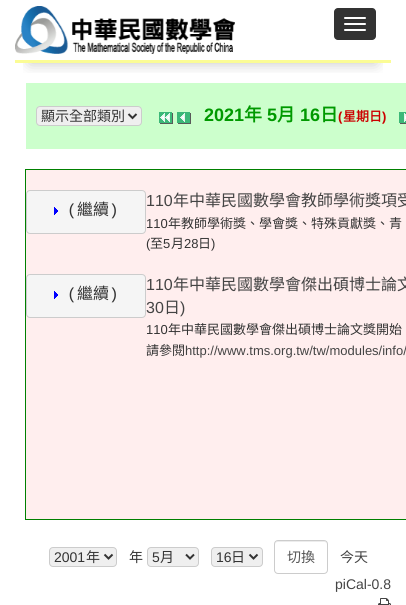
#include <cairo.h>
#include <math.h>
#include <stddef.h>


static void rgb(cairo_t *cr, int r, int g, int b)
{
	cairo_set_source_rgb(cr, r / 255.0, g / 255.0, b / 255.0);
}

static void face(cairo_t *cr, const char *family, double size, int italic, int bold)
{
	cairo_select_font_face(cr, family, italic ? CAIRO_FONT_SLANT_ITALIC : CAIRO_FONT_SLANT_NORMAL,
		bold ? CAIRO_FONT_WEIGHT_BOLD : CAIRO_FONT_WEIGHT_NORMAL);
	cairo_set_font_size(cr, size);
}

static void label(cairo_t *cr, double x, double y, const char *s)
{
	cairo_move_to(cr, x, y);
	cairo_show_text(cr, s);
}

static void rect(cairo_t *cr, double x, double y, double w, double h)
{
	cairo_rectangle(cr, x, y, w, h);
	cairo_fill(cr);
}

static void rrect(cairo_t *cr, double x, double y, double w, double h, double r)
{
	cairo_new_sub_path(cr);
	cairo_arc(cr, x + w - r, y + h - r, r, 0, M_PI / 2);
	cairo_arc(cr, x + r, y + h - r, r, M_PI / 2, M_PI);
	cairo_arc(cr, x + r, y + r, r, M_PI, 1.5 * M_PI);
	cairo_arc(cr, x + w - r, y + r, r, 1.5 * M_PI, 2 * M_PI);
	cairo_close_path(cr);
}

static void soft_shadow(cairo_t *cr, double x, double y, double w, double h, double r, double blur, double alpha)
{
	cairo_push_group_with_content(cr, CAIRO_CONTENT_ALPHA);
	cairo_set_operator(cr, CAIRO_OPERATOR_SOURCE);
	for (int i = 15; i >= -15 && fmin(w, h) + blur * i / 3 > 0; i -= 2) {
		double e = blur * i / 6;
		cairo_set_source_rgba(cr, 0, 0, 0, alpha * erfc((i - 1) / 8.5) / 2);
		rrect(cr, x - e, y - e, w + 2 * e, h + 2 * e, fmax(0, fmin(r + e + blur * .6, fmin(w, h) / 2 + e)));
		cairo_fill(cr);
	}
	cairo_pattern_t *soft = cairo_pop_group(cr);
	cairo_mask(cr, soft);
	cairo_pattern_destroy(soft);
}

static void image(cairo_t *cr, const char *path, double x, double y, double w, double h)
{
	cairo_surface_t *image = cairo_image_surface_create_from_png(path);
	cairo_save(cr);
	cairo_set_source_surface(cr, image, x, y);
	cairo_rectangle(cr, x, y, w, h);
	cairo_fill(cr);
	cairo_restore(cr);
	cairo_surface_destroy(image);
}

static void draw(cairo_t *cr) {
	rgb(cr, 255, 255, 255);
	cairo_paint(cr);
	rgb(cr, 204, 255, 204);
	rect(cr, 26, 83, 380, 66);
	cairo_save(cr);
	cairo_rectangle(cr, 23, 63, 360, 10);
	cairo_clip(cr);
	rgb(cr, 0, 0, 0);
	soft_shadow(cr, 30, 30, 346, 33, 0, 7.5, 0.24);
	cairo_restore(cr);
	rgb(cr, 251, 252, 149);
	rect(cr, 15, 60, 376, 3);
	image(cr, "image0.png", 15, 6, 220, 48);
	rgb(cr, 51, 51, 51);
	rrect(cr, 334, 8, 42, 32, 4);
	cairo_fill(cr);
	rgb(cr, 255, 255, 255);
	rrect(cr, 344, 17, 22, 2, 1);
	cairo_fill(cr);
	rrect(cr, 344, 23, 22, 2, 1);
	cairo_fill(cr);
	rrect(cr, 344, 29, 22, 2, 1);
	cairo_fill(cr);
	rgb(cr, 239, 239, 239);
	rrect(cr, 36.5, 106.5, 105, 19, 3.5);
	cairo_fill_preserve(cr);
	rgb(cr, 204, 204, 204);
	cairo_set_line_width(cr, 1);
	cairo_stroke(cr);
	cairo_new_path(cr);
	cairo_move_to(cr, 128.5, 114);
	cairo_line_to(cr, 132.5, 118);
	cairo_line_to(cr, 136.5, 114);
	rgb(cr, 51, 51, 51);
	cairo_set_line_width(cr, 2);
	cairo_stroke(cr);
	face(cr, "Noto Sans CJK TC", 14, 0, 0);
	label(cr, 41, 121, "顯示全部類別");
	image(cr, "image1.png", 159, 112, 14, 12);
	image(cr, "image2.png", 177, 112, 14, 12);
	face(cr, "Liberation Sans", 18, 0, 1);
	rgb(cr, 0, 153, 0);
	label(cr, 204, 121, "2021");
	face(cr, "Noto Sans CJK TC", 18, 0, 1);
	label(cr, 244, 121, "年");
	face(cr, "Liberation Sans", 18, 0, 1);
	label(cr, 267, 121, "5");
	face(cr, "Noto Sans CJK TC", 18, 0, 1);
	label(cr, 277, 121, "月");
	face(cr, "Liberation Sans", 18, 0, 1);
	label(cr, 300, 121, "16");
	face(cr, "Noto Sans CJK TC", 18, 0, 1);
	label(cr, 320, 121, "日");
	face(cr, "Liberation Sans", 13, 0, 1);
	rgb(cr, 204, 0, 0);
	label(cr, 338, 121, "(");
	face(cr, "Noto Sans CJK TC", 13, 0, 1);
	label(cr, 343, 121, "星期日");
	face(cr, "Liberation Sans", 13, 0, 1);
	label(cr, 382, 121, ")");
	image(cr, "image3.png", 399, 112, 7, 12);
	rgb(cr, 255, 238, 238);
	rect(cr, 26, 170, 380, 349);
	rgb(cr, 0, 128, 0);
	rect(cr, 25, 169, 381, 1);
	rect(cr, 25, 519, 381, 1);
	rect(cr, 25, 169, 1, 351);
	rgb(cr, 245, 245, 245);
	rrect(cr, 26.5, 190.5, 119, 43, 3.5);
	cairo_fill_preserve(cr);
	rgb(cr, 204, 204, 204);
	cairo_set_line_width(cr, 1);
	cairo_stroke(cr);
	image(cr, "image4.png", 54, 207, 4, 8);
	face(cr, "Liberation Mono", 16, 0, 0);
	rgb(cr, 51, 51, 51);
	label(cr, 67, 215, "(");
	face(cr, "Noto Sans CJK TC", 16, 0, 0);
	label(cr, 77, 215, "繼續");
	face(cr, "Liberation Mono", 16, 0, 0);
	label(cr, 109, 215, ")");
	face(cr, "Liberation Sans", 16, 0, 0);
	rgb(cr, 68, 68, 68);
	label(cr, 146, 206, "110");
	face(cr, "Noto Sans CJK TC", 16, 0, 0);
	label(cr, 173, 206, "年中華民國數學會教師學術獎項受");
	face(cr, "Liberation Sans", 13, 0, 0);
	rgb(cr, 51, 51, 51);
	label(cr, 146, 228, "110");
	face(cr, "Noto Sans CJK TC", 13, 0, 0);
	label(cr, 168, 228, "年教師學術獎、學會獎、特殊貢獻獎、青");
	face(cr, "Liberation Sans", 13, 0, 0);
	label(cr, 146, 248, "(");
	face(cr, "Noto Sans CJK TC", 13, 0, 0);
	label(cr, 150, 248, "至");
	face(cr, "Liberation Sans", 13, 0, 0);
	label(cr, 163, 248, "5");
	face(cr, "Noto Sans CJK TC", 13, 0, 0);
	label(cr, 171, 248, "月");
	face(cr, "Liberation Sans", 13, 0, 0);
	label(cr, 184, 248, "28");
	face(cr, "Noto Sans CJK TC", 13, 0, 0);
	label(cr, 198, 248, "日");
	face(cr, "Liberation Sans", 13, 0, 0);
	label(cr, 211, 248, ")");
	rgb(cr, 245, 245, 245);
	rrect(cr, 26.5, 274.5, 119, 43, 3.5);
	cairo_fill_preserve(cr);
	rgb(cr, 204, 204, 204);
	cairo_stroke(cr);
	image(cr, "image4.png", 54, 291, 4, 8);
	face(cr, "Liberation Mono", 16, 0, 0);
	rgb(cr, 51, 51, 51);
	label(cr, 67, 299, "(");
	face(cr, "Noto Sans CJK TC", 16, 0, 0);
	label(cr, 77, 299, "繼續");
	face(cr, "Liberation Mono", 16, 0, 0);
	label(cr, 109, 299, ")");
	face(cr, "Liberation Sans", 16, 0, 0);
	rgb(cr, 68, 68, 68);
	label(cr, 146, 290, "110");
	face(cr, "Noto Sans CJK TC", 16, 0, 0);
	label(cr, 173, 290, "年中華民國數學會傑出碩博士論文");
	face(cr, "Liberation Sans", 16, 0, 0);
	label(cr, 146, 313, "30");
	face(cr, "Noto Sans CJK TC", 16, 0, 0);
	label(cr, 164, 313, "日");
	face(cr, "Liberation Sans", 16, 0, 0);
	label(cr, 180, 313, ")");
	face(cr, "Liberation Sans", 13, 0, 0);
	rgb(cr, 51, 51, 51);
	label(cr, 146, 334, "110");
	face(cr, "Noto Sans CJK TC", 13, 0, 0);
	label(cr, 168, 334, "年中華民國數學會傑出碩博士論文獎開始");
	label(cr, 146, 355, "請參閱");
	face(cr, "Liberation Sans", 13, 0, 0);
	rgb(cr, 68, 68, 68);
	label(cr, 185, 355, "http://www.tms.org.tw/tw/modules/info/");
	rgb(cr, 239, 239, 239);
	rrect(cr, 49.5, 547.5, 67, 19, 3.5);
	cairo_fill_preserve(cr);
	rgb(cr, 204, 204, 204);
	cairo_stroke(cr);
	cairo_new_path(cr);
	cairo_move_to(cr, 104.5, 554.5);
	cairo_line_to(cr, 108.5, 558.5);
	cairo_line_to(cr, 112.5, 554.5);
	rgb(cr, 51, 51, 51);
	cairo_set_line_width(cr, 2);
	cairo_stroke(cr);
	face(cr, "Liberation Sans", 14, 0, 0);
	label(cr, 54, 562, "2001");
	face(cr, "Noto Sans CJK TC", 14, 0, 0);
	label(cr, 86, 562, "年");
	label(cr, 129, 562, "年");
	rgb(cr, 239, 239, 239);
	rrect(cr, 147.5, 547.5, 51, 19, 3.5);
	cairo_fill_preserve(cr);
	rgb(cr, 204, 204, 204);
	cairo_set_line_width(cr, 1);
	cairo_stroke(cr);
	cairo_new_path(cr);
	cairo_move_to(cr, 186, 554.5);
	cairo_line_to(cr, 190, 558.5);
	cairo_line_to(cr, 194, 554.5);
	rgb(cr, 51, 51, 51);
	cairo_set_line_width(cr, 2);
	cairo_stroke(cr);
	face(cr, "Liberation Sans", 14, 0, 0);
	label(cr, 152, 562, "5");
	face(cr, "Noto Sans CJK TC", 14, 0, 0);
	label(cr, 160, 562, "月");
	rgb(cr, 239, 239, 239);
	rrect(cr, 211.5, 547.5, 51, 19, 3.5);
	cairo_fill_preserve(cr);
	rgb(cr, 204, 204, 204);
	cairo_set_line_width(cr, 1);
	cairo_stroke(cr);
	cairo_new_path(cr);
	cairo_move_to(cr, 249.5, 554.5);
	cairo_line_to(cr, 253.5, 558.5);
	cairo_line_to(cr, 257.5, 554.5);
	rgb(cr, 51, 51, 51);
	cairo_set_line_width(cr, 2);
	cairo_stroke(cr);
	face(cr, "Liberation Sans", 14, 0, 0);
	label(cr, 216, 562, "16");
	face(cr, "Noto Sans CJK TC", 14, 0, 0);
	label(cr, 231, 562, "日");
	rgb(cr, 236, 236, 236);
	cairo_new_path(cr);
	cairo_move_to(cr, 278, 542);
	cairo_line_to(cr, 324, 542);
	cairo_curve_to(cr, 326, 542, 327, 543, 327, 545);
	cairo_curve_to(cr, 327, 539, 321, 541, 316, 541);
	cairo_line_to(cr, 286, 541);
	cairo_curve_to(cr, 281, 541, 275, 539, 275, 545);
	cairo_curve_to(cr, 275, 543, 276, 542, 278, 542);
	cairo_close_path(cr);
	cairo_fill(cr);
	rrect(cr, 274.5, 540.5, 53, 33, 3.5);
	rgb(cr, 204, 204, 204);
	cairo_set_line_width(cr, 1);
	cairo_stroke(cr);
	rgb(cr, 85, 85, 85);
	label(cr, 287, 562, "切換");
	rgb(cr, 68, 68, 68);
	label(cr, 340, 562, "今天");
	face(cr, "Liberation Sans", 14, 0, 0);
	label(cr, 335, 589, "piCal-0.8");
	image(cr, "image5.png", 378, 598, 13, 7);
}

int main(void) {
	cairo_surface_t *surface = cairo_image_surface_create(CAIRO_FORMAT_RGB24, 406, 605);
	cairo_t *cr = cairo_create(surface);
	cairo_font_options_t *options = cairo_font_options_create();
	cairo_font_options_set_hint_metrics(options, CAIRO_HINT_METRICS_OFF);
	cairo_font_options_set_hint_style(options, CAIRO_HINT_STYLE_NONE);
	cairo_set_font_options(cr, options);
	cairo_set_miter_limit(cr, 4);
	draw(cr);
	cairo_surface_write_to_png(surface, "render.png");
	cairo_font_options_destroy(options);
	cairo_destroy(cr);
	cairo_surface_destroy(surface);
	return 0;
}
